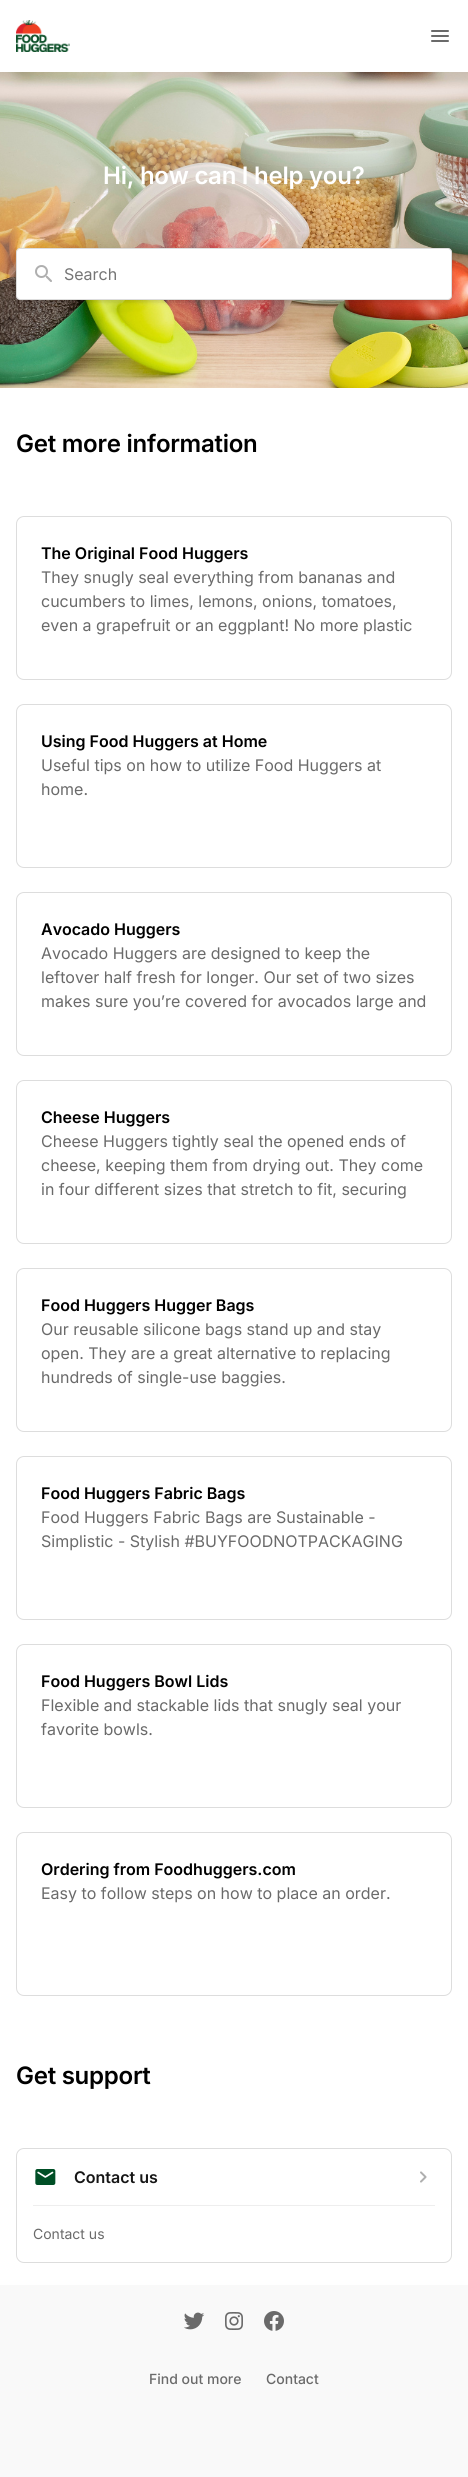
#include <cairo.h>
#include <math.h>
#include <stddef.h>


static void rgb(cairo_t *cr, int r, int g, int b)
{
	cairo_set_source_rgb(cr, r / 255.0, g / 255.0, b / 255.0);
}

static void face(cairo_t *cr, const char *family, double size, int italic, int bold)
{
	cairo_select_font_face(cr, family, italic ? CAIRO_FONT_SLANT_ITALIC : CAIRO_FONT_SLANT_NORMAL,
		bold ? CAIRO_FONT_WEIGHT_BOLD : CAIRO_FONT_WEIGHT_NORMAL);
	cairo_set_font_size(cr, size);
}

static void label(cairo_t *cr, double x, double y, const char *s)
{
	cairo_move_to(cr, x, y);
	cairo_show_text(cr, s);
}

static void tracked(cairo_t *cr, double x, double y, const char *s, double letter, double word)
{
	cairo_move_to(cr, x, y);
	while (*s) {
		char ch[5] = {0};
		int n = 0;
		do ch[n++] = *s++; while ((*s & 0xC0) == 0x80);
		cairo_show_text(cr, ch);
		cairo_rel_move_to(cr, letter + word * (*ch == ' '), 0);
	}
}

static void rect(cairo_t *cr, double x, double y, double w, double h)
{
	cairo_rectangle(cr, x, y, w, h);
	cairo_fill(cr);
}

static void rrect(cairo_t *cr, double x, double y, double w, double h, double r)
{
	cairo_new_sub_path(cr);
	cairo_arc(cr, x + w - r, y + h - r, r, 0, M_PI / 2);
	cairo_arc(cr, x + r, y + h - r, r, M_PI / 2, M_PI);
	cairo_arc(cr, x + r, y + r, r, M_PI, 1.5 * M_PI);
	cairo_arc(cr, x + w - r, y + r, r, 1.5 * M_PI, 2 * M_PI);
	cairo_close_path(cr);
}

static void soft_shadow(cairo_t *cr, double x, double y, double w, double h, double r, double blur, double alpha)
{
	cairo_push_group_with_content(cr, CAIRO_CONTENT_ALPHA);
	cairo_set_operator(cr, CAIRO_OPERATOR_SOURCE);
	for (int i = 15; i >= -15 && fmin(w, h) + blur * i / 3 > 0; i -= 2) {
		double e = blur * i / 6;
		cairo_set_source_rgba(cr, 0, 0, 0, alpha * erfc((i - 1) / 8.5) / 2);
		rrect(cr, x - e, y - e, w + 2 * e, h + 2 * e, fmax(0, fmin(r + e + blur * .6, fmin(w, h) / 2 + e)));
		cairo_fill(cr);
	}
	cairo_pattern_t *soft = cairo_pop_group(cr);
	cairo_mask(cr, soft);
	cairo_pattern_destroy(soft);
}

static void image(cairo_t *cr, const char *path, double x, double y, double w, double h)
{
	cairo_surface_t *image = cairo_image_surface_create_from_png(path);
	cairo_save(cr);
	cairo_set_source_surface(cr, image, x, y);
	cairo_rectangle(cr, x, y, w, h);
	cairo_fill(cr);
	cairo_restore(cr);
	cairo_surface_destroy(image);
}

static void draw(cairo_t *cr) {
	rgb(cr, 255, 255, 255);
	cairo_paint(cr);
	image(cr, "image0.png", 16, 20, 54, 32);
	image(cr, "image1.png", 431, 30, 18, 12);
	image(cr, "image2.png", 0, 72, 468, 316);
	face(cr, "Inter SemiBold", 24, 0, 0);
	rgb(cr, 255, 255, 255);
	tracked(cr, 103, 184, "Hi, how can I help you?", -0.25, 0);
	rgb(cr, 22, 22, 22);
	soft_shadow(cr, 16, 250, 436, 52, 4, 2, 0.16);
	rgb(cr, 255, 255, 255);
	rrect(cr, 16.5, 248.5, 435, 51, 3.5);
	cairo_fill_preserve(cr);
	rgb(cr, 221, 221, 221);
	cairo_set_line_width(cr, 1);
	cairo_stroke(cr);
	image(cr, "image3.png", 35, 265, 17, 17);
	face(cr, "Inter", 16, 0, 0);
	rgb(cr, 117, 117, 117);
	label(cr, 64, 280, "Search");
	face(cr, "Inter SemiBold", 24, 0, 0);
	rgb(cr, 0, 0, 0);
	tracked(cr, 16, 452, "Get more information", -0.25, 0);
	rrect(cr, 16.5, 516.5, 435, 163, 7.5);
	rgb(cr, 221, 221, 221);
	cairo_stroke(cr);
	face(cr, "Inter SemiBold", 16, 0, 0);
	rgb(cr, 0, 0, 0);
	label(cr, 41, 559, "The Original Food Huggers");
	face(cr, "Inter", 16, 0, 0);
	rgb(cr, 106, 106, 106);
	label(cr, 41, 583, "They snugly seal everything from bananas and");
	label(cr, 41, 607, "cucumbers to limes, lemons, onions, tomatoes,");
	label(cr, 41, 631, "even a grapefruit or an eggplant! No more plastic");
	rrect(cr, 16.5, 704.5, 435, 163, 7.5);
	rgb(cr, 221, 221, 221);
	cairo_stroke(cr);
	face(cr, "Inter SemiBold", 16, 0, 0);
	rgb(cr, 0, 0, 0);
	label(cr, 41, 747, "Using Food Huggers at Home");
	face(cr, "Inter", 16, 0, 0);
	rgb(cr, 106, 106, 106);
	label(cr, 41, 771, "Useful tips on how to utilize Food Huggers at");
	label(cr, 41, 795, "home.");
	rrect(cr, 16.5, 892.5, 435, 163, 7.5);
	rgb(cr, 221, 221, 221);
	cairo_stroke(cr);
	face(cr, "Inter SemiBold", 16, 0, 0);
	rgb(cr, 0, 0, 0);
	label(cr, 41, 935, "Avocado Huggers");
	face(cr, "Inter", 16, 0, 0);
	rgb(cr, 106, 106, 106);
	label(cr, 41, 959, "Avocado Huggers are designed to keep the");
	label(cr, 41, 983, "leftover half fresh for longer. Our set of two sizes");
	label(cr, 41, 1007, "makes sure you’re covered for avocados large and");
	rrect(cr, 16.5, 1080.5, 435, 163, 7.5);
	rgb(cr, 221, 221, 221);
	cairo_stroke(cr);
	face(cr, "Inter SemiBold", 16, 0, 0);
	rgb(cr, 0, 0, 0);
	label(cr, 41, 1123, "Cheese Huggers");
	face(cr, "Inter", 16, 0, 0);
	rgb(cr, 106, 106, 106);
	label(cr, 41, 1147, "Cheese Huggers tightly seal the opened ends of");
	label(cr, 41, 1171, "cheese, keeping them from drying out. They come");
	label(cr, 41, 1195, "in four different sizes that stretch to fit, securing");
	rrect(cr, 16.5, 1268.5, 435, 163, 7.5);
	rgb(cr, 221, 221, 221);
	cairo_stroke(cr);
	face(cr, "Inter SemiBold", 16, 0, 0);
	rgb(cr, 0, 0, 0);
	label(cr, 41, 1311, "Food Huggers Hugger Bags");
	face(cr, "Inter", 16, 0, 0);
	rgb(cr, 106, 106, 106);
	label(cr, 41, 1335, "Our reusable silicone bags stand up and stay");
	label(cr, 41, 1359, "open. They are a great alternative to replacing");
	label(cr, 41, 1383, "hundreds of single-use baggies.");
	rrect(cr, 16.5, 1456.5, 435, 163, 7.5);
	rgb(cr, 221, 221, 221);
	cairo_stroke(cr);
	face(cr, "Inter SemiBold", 16, 0, 0);
	rgb(cr, 0, 0, 0);
	label(cr, 41, 1499, "Food Huggers Fabric Bags");
	face(cr, "Inter", 16, 0, 0);
	rgb(cr, 106, 106, 106);
	label(cr, 41, 1523, "Food Huggers Fabric Bags are Sustainable -");
	label(cr, 41, 1547, "Simplistic - Stylish #BUYFOODNOTPACKAGING");
	rrect(cr, 16.5, 1644.5, 435, 163, 7.5);
	rgb(cr, 221, 221, 221);
	cairo_stroke(cr);
	face(cr, "Inter SemiBold", 16, 0, 0);
	rgb(cr, 0, 0, 0);
	label(cr, 41, 1687, "Food Huggers Bowl Lids");
	face(cr, "Inter", 16, 0, 0);
	rgb(cr, 106, 106, 106);
	label(cr, 41, 1711, "Flexible and stackable lids that snugly seal your");
	label(cr, 41, 1735, "favorite bowls.");
	rrect(cr, 16.5, 1832.5, 435, 163, 7.5);
	rgb(cr, 221, 221, 221);
	cairo_stroke(cr);
	face(cr, "Inter SemiBold", 16, 0, 0);
	rgb(cr, 0, 0, 0);
	label(cr, 41, 1875, "Ordering from Foodhuggers.com");
	face(cr, "Inter", 16, 0, 0);
	rgb(cr, 106, 106, 106);
	label(cr, 41, 1899, "Easy to follow steps on how to place an order.");
	face(cr, "Inter SemiBold", 24, 0, 0);
	rgb(cr, 0, 0, 0);
	tracked(cr, 16, 2084, "Get support", -0.25, 0);
	rrect(cr, 16.5, 2148.5, 435, 114, 7.5);
	rgb(cr, 221, 221, 221);
	cairo_stroke(cr);
	rgb(cr, 238, 238, 238);
	rect(cr, 33, 2205, 402, 1);
	image(cr, "image4.png", 35, 2169, 21, 16);
	face(cr, "Inter SemiBold", 16, 0, 0);
	rgb(cr, 22, 22, 22);
	label(cr, 74, 2183, "Contact us");
	image(cr, "image5.png", 420, 2171, 7, 12);
	face(cr, "Inter", 14, 0, 0);
	rgb(cr, 106, 106, 106);
	label(cr, 33, 2239, "Contact us");
	rgb(cr, 249, 249, 249);
	rect(cr, 0, 2285, 468, 192);
	image(cr, "image6.png", 184, 2312, 21, 18);
	image(cr, "image7.png", 225, 2312, 18, 18);
	image(cr, "image8.png", 264, 2311, 20, 20);
	face(cr, "Inter Medium", 14, 0, 0);
	rgb(cr, 106, 106, 106);
	label(cr, 149, 2384, "Find out more");
	label(cr, 266, 2384, "Contact");
}

int main(void) {
	cairo_surface_t *surface = cairo_image_surface_create(CAIRO_FORMAT_RGB24, 468, 2477);
	cairo_t *cr = cairo_create(surface);
	cairo_font_options_t *options = cairo_font_options_create();
	cairo_font_options_set_hint_metrics(options, CAIRO_HINT_METRICS_OFF);
	cairo_font_options_set_hint_style(options, CAIRO_HINT_STYLE_NONE);
	cairo_set_font_options(cr, options);
	cairo_set_miter_limit(cr, 4);
	draw(cr);
	cairo_surface_write_to_png(surface, "render.png");
	cairo_font_options_destroy(options);
	cairo_destroy(cr);
	cairo_surface_destroy(surface);
	return 0;
}
